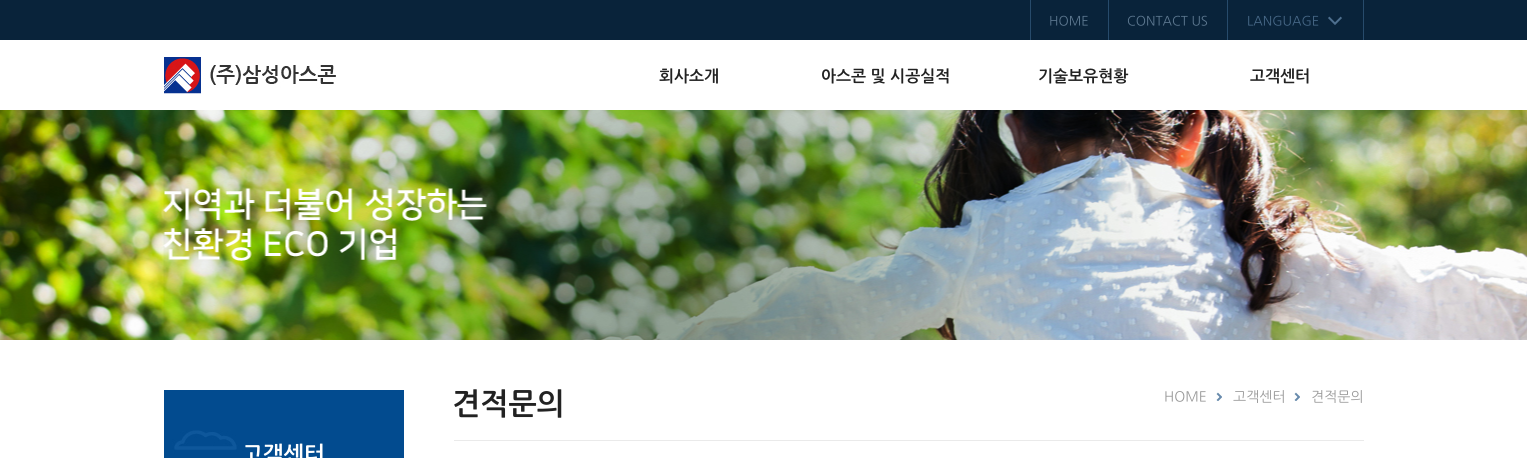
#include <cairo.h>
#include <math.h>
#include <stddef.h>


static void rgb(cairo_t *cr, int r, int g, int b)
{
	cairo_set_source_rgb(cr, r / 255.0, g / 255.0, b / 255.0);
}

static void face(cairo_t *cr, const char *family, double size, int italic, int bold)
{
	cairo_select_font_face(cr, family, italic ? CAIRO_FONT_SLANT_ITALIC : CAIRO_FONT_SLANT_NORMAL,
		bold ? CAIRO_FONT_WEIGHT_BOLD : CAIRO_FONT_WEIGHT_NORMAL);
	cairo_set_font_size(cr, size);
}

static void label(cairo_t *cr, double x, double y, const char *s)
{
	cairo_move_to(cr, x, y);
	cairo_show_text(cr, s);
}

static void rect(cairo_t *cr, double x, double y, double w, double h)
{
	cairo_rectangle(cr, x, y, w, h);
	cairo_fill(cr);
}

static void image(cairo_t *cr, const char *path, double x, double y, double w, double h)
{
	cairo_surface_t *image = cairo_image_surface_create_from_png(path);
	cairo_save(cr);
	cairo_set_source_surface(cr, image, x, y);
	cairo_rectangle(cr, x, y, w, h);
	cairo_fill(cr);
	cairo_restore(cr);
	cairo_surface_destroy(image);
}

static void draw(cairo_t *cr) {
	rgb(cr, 255, 255, 255);
	cairo_paint(cr);
	rgb(cr, 9, 35, 58);
	rect(cr, 0, 0, 1527, 40);
	rgb(cr, 39, 75, 107);
	rect(cr, 1108, 0, 1, 40);
	rect(cr, 1030, 0, 1, 40);
	face(cr, "NanumGothic", 13, 0, 0);
	rgb(cr, 93, 120, 144);
	label(cr, 1049, 25, "HOME");
	rgb(cr, 39, 75, 107);
	rect(cr, 1227, 0, 1, 40);
	rgb(cr, 93, 120, 144);
	label(cr, 1127, 25, "CONTACT US");
	rgb(cr, 39, 75, 107);
	rect(cr, 1363, 0, 1, 40);
	image(cr, "image0.png", 1328, 16, 14, 9);
	rgb(cr, 71, 104, 135);
	label(cr, 1247, 25, "LANGUAGE");
	image(cr, "image1.png", 164, 57, 172, 37);
	face(cr, "NanumGothic", 16, 0, 1);
	rgb(cr, 34, 34, 34);
	label(cr, 659, 81, "회사소개");
	label(cr, 821, 81, "아스콘 및 시공실적");
	label(cr, 1038, 81, "기술보유현황");
	label(cr, 1250, 81, "고객센터");
	image(cr, "image2.png", 0, 110, 1527, 230);
	rgb(cr, 234, 234, 234);
	rect(cr, 454, 440, 910, 1);
	face(cr, "NanumGothic", 30, 0, 1);
	rgb(cr, 34, 34, 34);
	label(cr, 452, 413, "견적문의");
	face(cr, "NanumGothic", 14, 0, 0);
	rgb(cr, 153, 153, 153);
	label(cr, 1164, 401, "HOME");
	image(cr, "image3.png", 1216, 392, 6, 9);
	label(cr, 1233, 401, "고객센터");
	image(cr, "image3.png", 1294, 392, 6, 9);
	label(cr, 1311, 401, "견적문의");
	image(cr, "image4.png", 164, 390, 240, 68);
	face(cr, "NanumGothic", 22, 0, 1);
	rgb(cr, 255, 255, 255);
	label(cr, 242, 461, "고객센터");
}

int main(void) {
	cairo_surface_t *surface = cairo_image_surface_create(CAIRO_FORMAT_RGB24, 1527, 458);
	cairo_t *cr = cairo_create(surface);
	cairo_font_options_t *options = cairo_font_options_create();
	cairo_font_options_set_hint_metrics(options, CAIRO_HINT_METRICS_OFF);
	cairo_font_options_set_hint_style(options, CAIRO_HINT_STYLE_NONE);
	cairo_set_font_options(cr, options);
	cairo_set_miter_limit(cr, 4);
	draw(cr);
	cairo_surface_write_to_png(surface, "render.png");
	cairo_font_options_destroy(options);
	cairo_destroy(cr);
	cairo_surface_destroy(surface);
	return 0;
}
